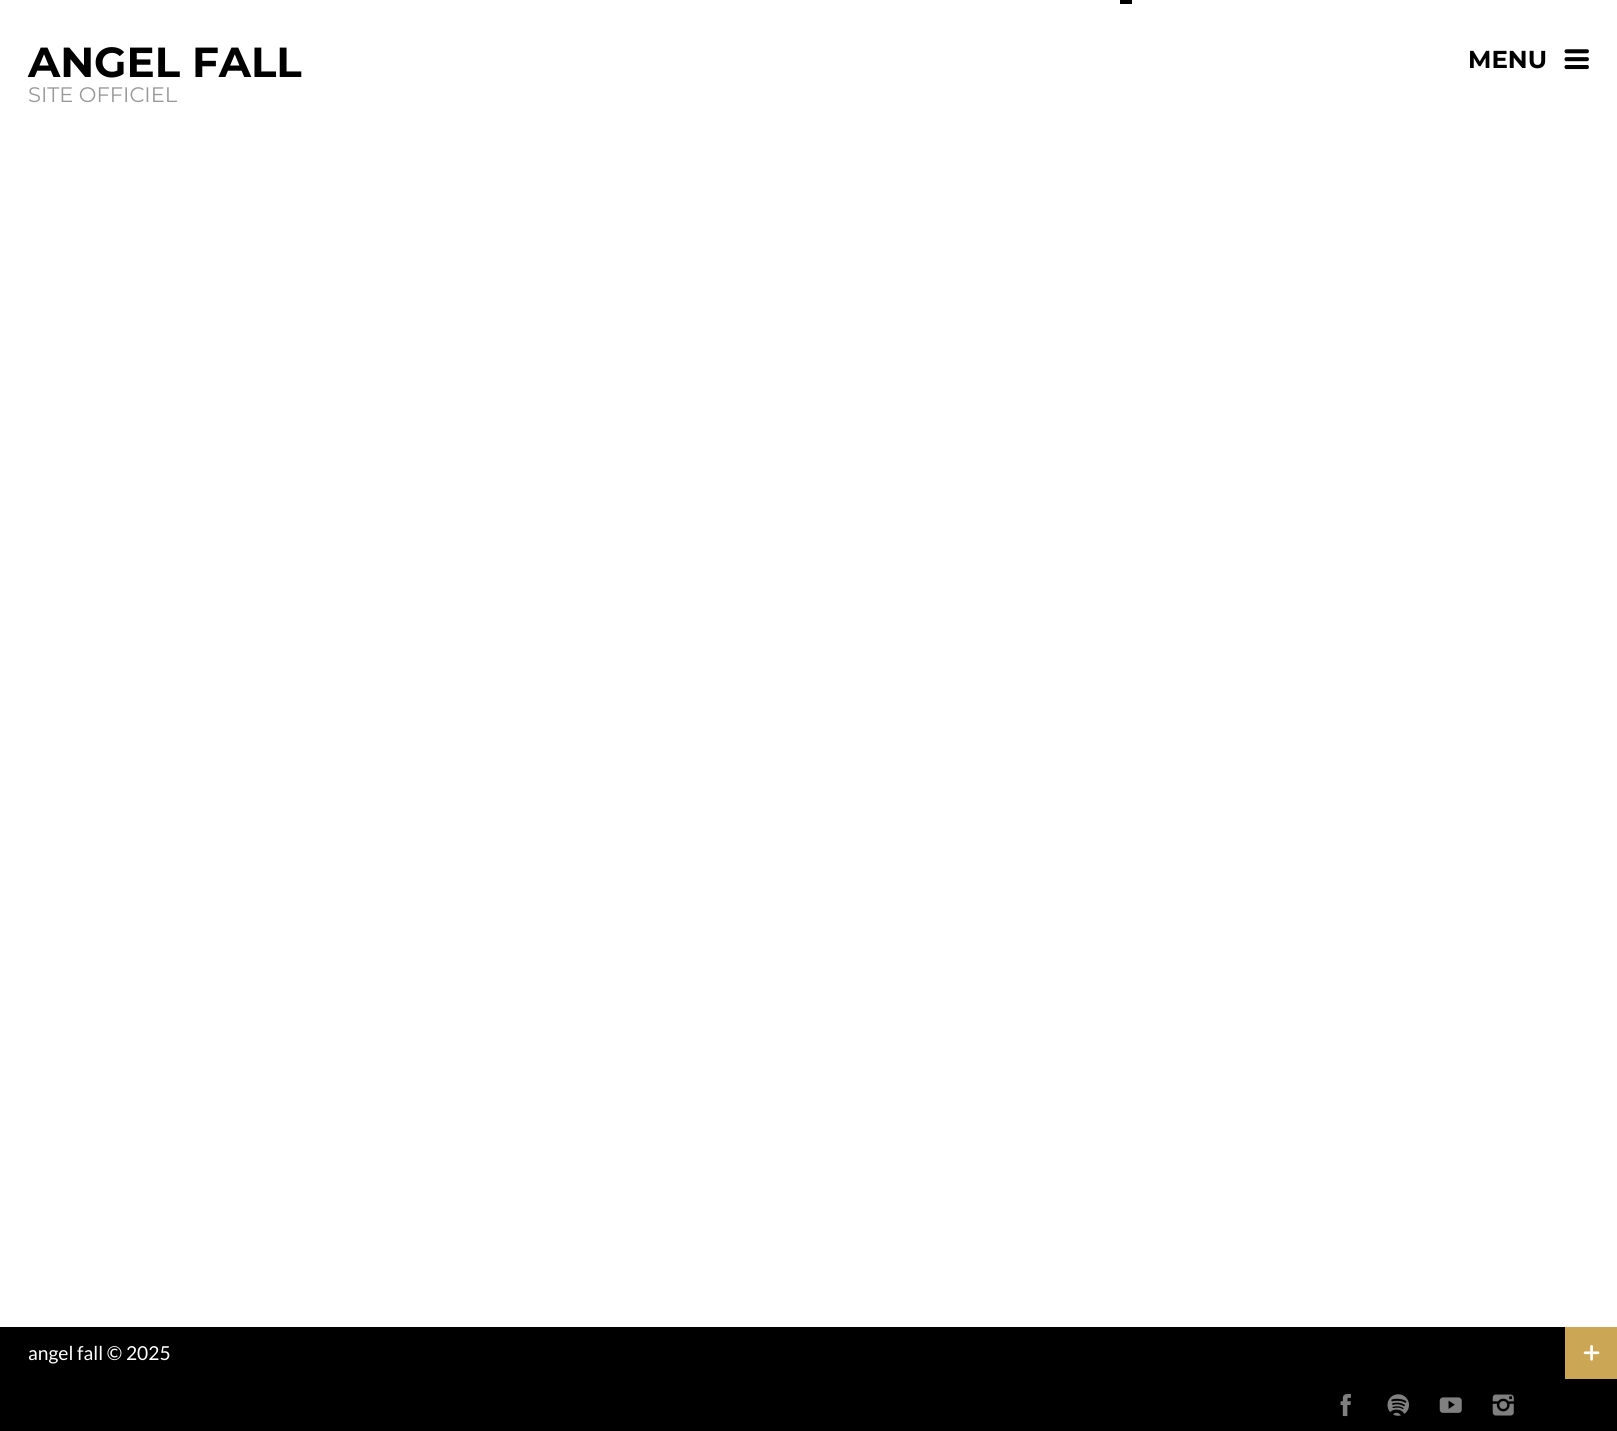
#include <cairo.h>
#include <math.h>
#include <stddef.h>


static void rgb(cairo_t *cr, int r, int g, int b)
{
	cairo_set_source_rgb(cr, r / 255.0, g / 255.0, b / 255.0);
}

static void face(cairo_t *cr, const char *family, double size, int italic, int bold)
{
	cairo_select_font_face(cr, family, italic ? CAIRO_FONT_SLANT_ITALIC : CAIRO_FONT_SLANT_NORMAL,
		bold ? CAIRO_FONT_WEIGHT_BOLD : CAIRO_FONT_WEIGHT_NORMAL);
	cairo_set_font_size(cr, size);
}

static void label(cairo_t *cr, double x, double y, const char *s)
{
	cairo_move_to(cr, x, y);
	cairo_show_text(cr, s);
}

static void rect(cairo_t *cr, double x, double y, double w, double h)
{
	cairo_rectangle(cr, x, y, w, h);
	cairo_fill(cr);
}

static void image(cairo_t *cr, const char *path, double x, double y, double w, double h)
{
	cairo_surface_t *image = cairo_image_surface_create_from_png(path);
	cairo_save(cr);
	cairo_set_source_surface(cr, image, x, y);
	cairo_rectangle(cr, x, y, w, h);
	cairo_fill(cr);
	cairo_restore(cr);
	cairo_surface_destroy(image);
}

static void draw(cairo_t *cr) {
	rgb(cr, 255, 255, 255);
	cairo_paint(cr);
	rgb(cr, 0, 0, 0);
	rect(cr, 1120, 0, 12, 4);
	face(cr, "Montserrat", 42, 0, 1);
	label(cr, 28, 77, "ANGEL FALL");
	face(cr, "Montserrat", 21, 0, 0);
	rgb(cr, 153, 153, 153);
	label(cr, 28, 102, "SITE OFFICIEL");
	face(cr, "Montserrat", 24.5, 0, 1);
	rgb(cr, 0, 0, 0);
	label(cr, 1468, 68, "MENU");
	image(cr, "image0.png", 1564, 49, 25, 21);
	rect(cr, 0, 1327, 1617, 104);
	face(cr, "Lato", 19.25, 0, 0);
	rgb(cr, 255, 255, 255);
	label(cr, 28, 1360, "angel fall © 2025");
	rgb(cr, 203, 167, 85);
	rect(cr, 1565, 1327, 52, 52);
	image(cr, "image1.png", 1583, 1345, 17, 16);
	image(cr, "image2.png", 1340, 1394, 11, 23);
	image(cr, "image3.png", 1387, 1394, 22, 22);
	image(cr, "image4.png", 1439, 1397, 23, 16);
	image(cr, "image5.png", 1492, 1394, 22, 22);
}

int main(void) {
	cairo_surface_t *surface = cairo_image_surface_create(CAIRO_FORMAT_RGB24, 1617, 1431);
	cairo_t *cr = cairo_create(surface);
	cairo_font_options_t *options = cairo_font_options_create();
	cairo_font_options_set_hint_metrics(options, CAIRO_HINT_METRICS_OFF);
	cairo_font_options_set_hint_style(options, CAIRO_HINT_STYLE_NONE);
	cairo_set_font_options(cr, options);
	cairo_set_miter_limit(cr, 4);
	draw(cr);
	cairo_surface_write_to_png(surface, "render.png");
	cairo_font_options_destroy(options);
	cairo_destroy(cr);
	cairo_surface_destroy(surface);
	return 0;
}
